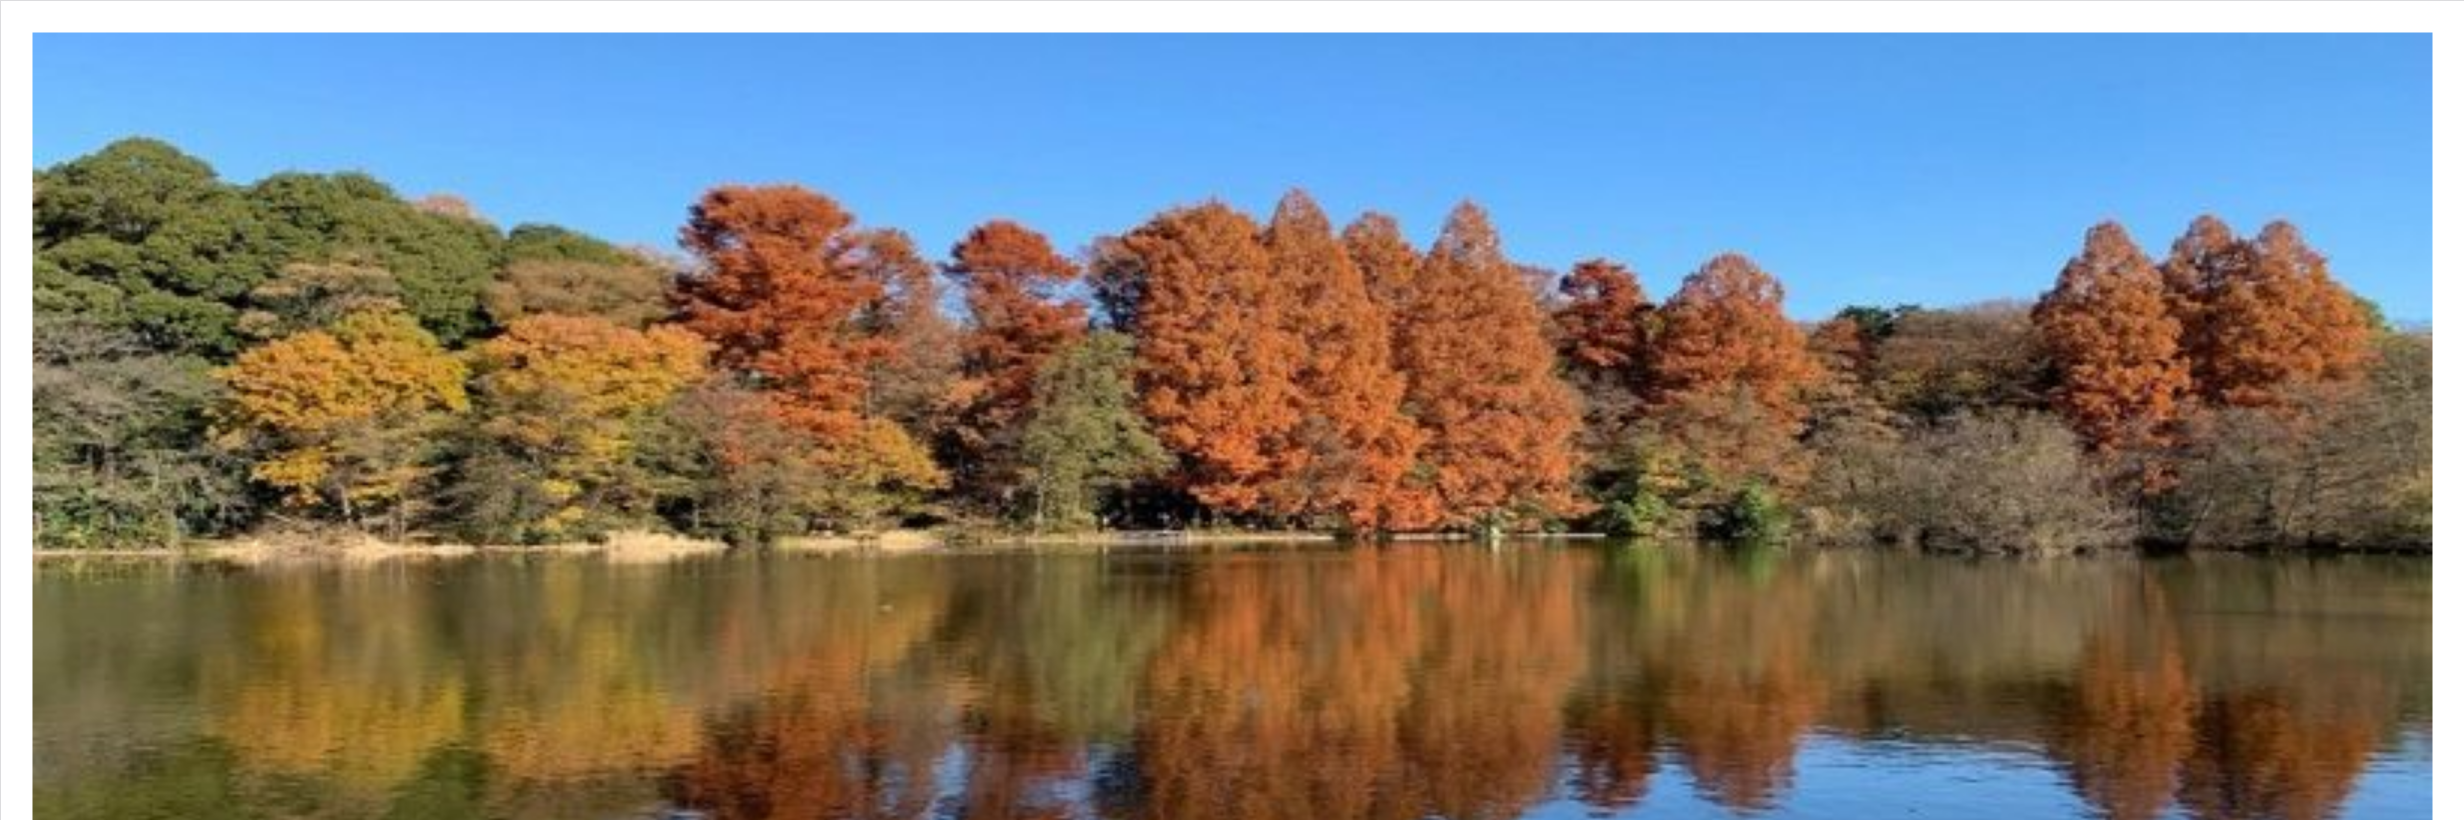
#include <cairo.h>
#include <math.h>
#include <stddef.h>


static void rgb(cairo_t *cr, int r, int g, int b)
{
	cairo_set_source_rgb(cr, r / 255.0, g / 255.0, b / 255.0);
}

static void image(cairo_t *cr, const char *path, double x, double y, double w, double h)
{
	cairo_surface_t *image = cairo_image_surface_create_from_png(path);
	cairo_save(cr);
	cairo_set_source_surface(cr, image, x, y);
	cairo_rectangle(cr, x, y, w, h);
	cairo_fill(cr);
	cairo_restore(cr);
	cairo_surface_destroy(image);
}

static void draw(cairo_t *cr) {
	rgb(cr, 255, 255, 255);
	cairo_paint(cr);
	cairo_rectangle(cr, 0.5, 0.5, 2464, 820);
	rgb(cr, 220, 220, 222);
	cairo_set_line_width(cr, 1);
	cairo_stroke(cr);
	image(cr, "image0.png", 32, 32, 2401, 788);
}

int main(void) {
	cairo_surface_t *surface = cairo_image_surface_create(CAIRO_FORMAT_RGB24, 2464, 820);
	cairo_t *cr = cairo_create(surface);
	cairo_font_options_t *options = cairo_font_options_create();
	cairo_font_options_set_hint_metrics(options, CAIRO_HINT_METRICS_OFF);
	cairo_font_options_set_hint_style(options, CAIRO_HINT_STYLE_NONE);
	cairo_set_font_options(cr, options);
	cairo_set_miter_limit(cr, 4);
	draw(cr);
	cairo_surface_write_to_png(surface, "render.png");
	cairo_font_options_destroy(options);
	cairo_destroy(cr);
	cairo_surface_destroy(surface);
	return 0;
}
